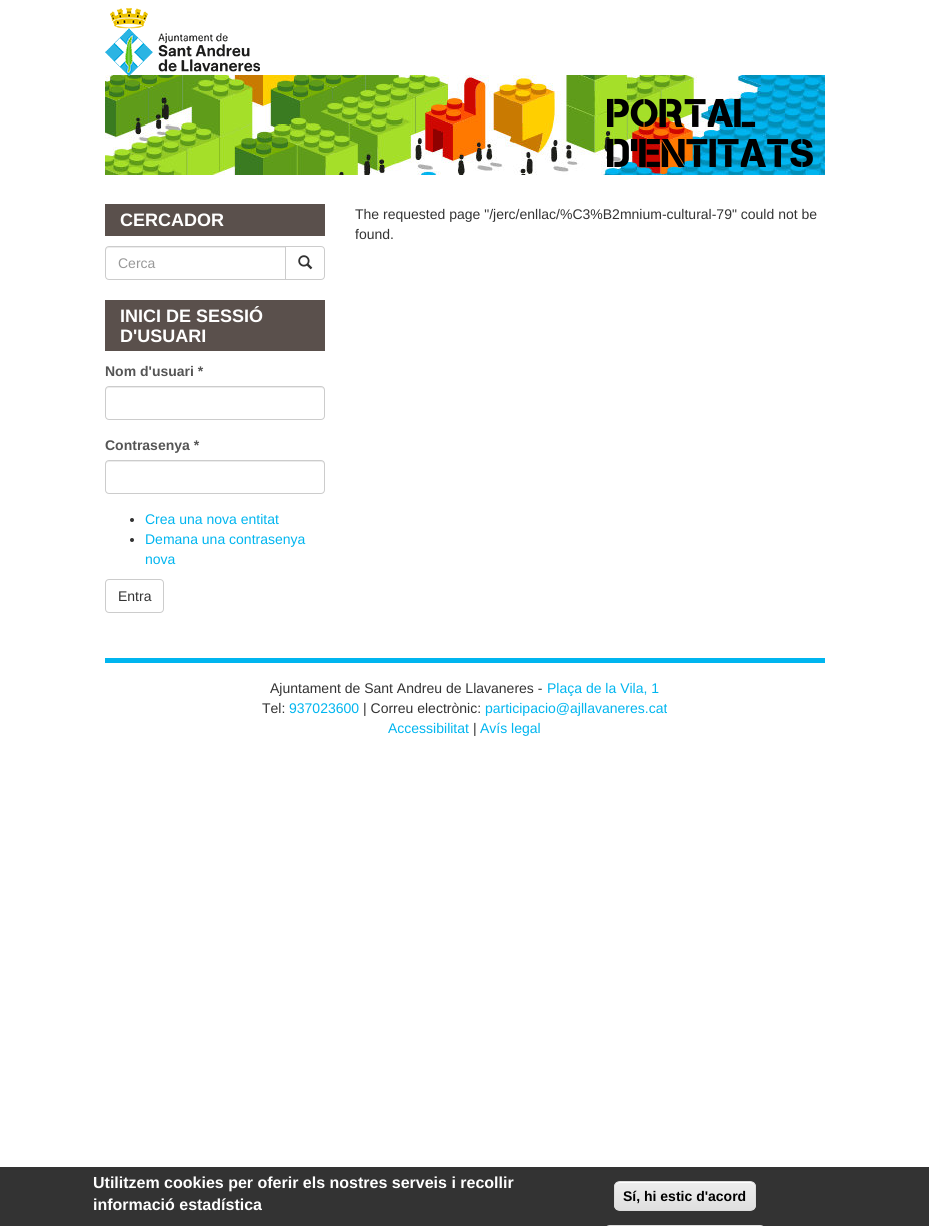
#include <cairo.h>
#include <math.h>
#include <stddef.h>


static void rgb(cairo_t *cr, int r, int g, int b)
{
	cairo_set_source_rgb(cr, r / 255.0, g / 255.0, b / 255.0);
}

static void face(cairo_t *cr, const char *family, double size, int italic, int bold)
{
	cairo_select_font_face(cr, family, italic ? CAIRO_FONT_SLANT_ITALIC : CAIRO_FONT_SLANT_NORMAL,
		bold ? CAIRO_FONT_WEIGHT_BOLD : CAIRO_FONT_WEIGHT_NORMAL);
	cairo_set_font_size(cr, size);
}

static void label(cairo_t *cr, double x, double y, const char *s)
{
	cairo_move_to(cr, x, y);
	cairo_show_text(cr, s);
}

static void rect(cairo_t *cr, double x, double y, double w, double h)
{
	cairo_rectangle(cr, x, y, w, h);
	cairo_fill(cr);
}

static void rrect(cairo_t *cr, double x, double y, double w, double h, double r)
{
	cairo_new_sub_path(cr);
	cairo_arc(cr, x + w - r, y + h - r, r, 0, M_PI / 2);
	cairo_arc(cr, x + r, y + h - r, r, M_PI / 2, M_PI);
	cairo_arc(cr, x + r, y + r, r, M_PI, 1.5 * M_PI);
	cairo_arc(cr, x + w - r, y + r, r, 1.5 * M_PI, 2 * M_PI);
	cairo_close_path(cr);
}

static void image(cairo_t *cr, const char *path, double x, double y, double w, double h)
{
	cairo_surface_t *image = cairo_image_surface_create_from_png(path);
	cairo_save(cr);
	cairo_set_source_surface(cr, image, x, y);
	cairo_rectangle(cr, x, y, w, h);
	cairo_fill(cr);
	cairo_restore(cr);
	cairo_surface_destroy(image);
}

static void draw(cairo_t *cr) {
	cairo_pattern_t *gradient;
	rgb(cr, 255, 255, 255);
	cairo_paint(cr);
	image(cr, "image0.png", 105, 75, 720, 100);
	image(cr, "image1.png", 105, 8, 155, 68);
	face(cr, "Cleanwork", 40, 0, 0);
	rgb(cr, 0, 0, 0);
	label(cr, 607, 127, "PORTAL");
	label(cr, 607, 167, "D'ENTITATS");
	rgb(cr, 90, 80, 76);
	rect(cr, 105, 204, 220, 32);
	face(cr, "Liberation Sans", 18, 0, 1);
	rgb(cr, 255, 255, 255);
	label(cr, 120, 226, "CERCADOR");
	rgb(cr, 236, 236, 236);
	cairo_new_path(cr);
	cairo_move_to(cr, 109, 248);
	cairo_line_to(cr, 285, 248);
	cairo_line_to(cr, 285, 247);
	cairo_line_to(cr, 108, 247);
	cairo_curve_to(cr, 106, 248, 106, 249, 106, 251);
	cairo_curve_to(cr, 106, 249, 107, 248, 109, 248);
	cairo_close_path(cr);
	cairo_fill(cr);
	cairo_new_path(cr);
	cairo_move_to(cr, 109, 246.5);
	cairo_line_to(cr, 285.5, 246.5);
	cairo_line_to(cr, 285.5, 279.5);
	cairo_line_to(cr, 109, 279.5);
	cairo_curve_to(cr, 107, 279.5, 105.5, 278, 105.5, 276);
	cairo_line_to(cr, 105.5, 250);
	cairo_curve_to(cr, 105.5, 248, 107, 246.5, 109, 246.5);
	cairo_close_path(cr);
	rgb(cr, 204, 204, 204);
	cairo_set_line_width(cr, 1);
	cairo_stroke(cr);
	face(cr, "Liberation Sans", 14, 0, 0);
	rgb(cr, 153, 153, 153);
	label(cr, 118, 268, "Cerca");
	rgb(cr, 255, 255, 255);
	cairo_new_path(cr);
	cairo_move_to(cr, 285.5, 246.5);
	cairo_line_to(cr, 321, 246.5);
	cairo_curve_to(cr, 323, 246.5, 324.5, 248, 324.5, 250);
	cairo_line_to(cr, 324.5, 276);
	cairo_curve_to(cr, 324.5, 278, 323, 279.5, 321, 279.5);
	cairo_line_to(cr, 285.5, 279.5);
	cairo_close_path(cr);
	cairo_fill_preserve(cr);
	rgb(cr, 204, 204, 204);
	cairo_stroke(cr);
	image(cr, "image2.png", 298, 255, 15, 15);
	rgb(cr, 90, 80, 76);
	rect(cr, 105, 300, 220, 51);
	face(cr, "Liberation Sans", 18, 0, 1);
	rgb(cr, 255, 255, 255);
	label(cr, 120, 322, "INICI DE SESSIÓ");
	label(cr, 120, 342, "D'USUARI");
	face(cr, "Liberation Sans", 14, 0, 1);
	rgb(cr, 85, 85, 85);
	label(cr, 105, 376, "Nom d'usuari *");
	rgb(cr, 236, 236, 236);
	cairo_new_path(cr);
	cairo_move_to(cr, 109, 388);
	cairo_line_to(cr, 321, 388);
	cairo_curve_to(cr, 323, 388, 324, 389, 324, 391);
	cairo_line_to(cr, 324, 390);
	cairo_curve_to(cr, 324, 388, 323, 387, 321, 387);
	cairo_line_to(cr, 109, 387);
	cairo_curve_to(cr, 107, 387, 106, 388, 106, 390);
	cairo_line_to(cr, 106, 391);
	cairo_curve_to(cr, 106, 389, 107, 388, 109, 388);
	cairo_close_path(cr);
	cairo_fill(cr);
	rrect(cr, 105.5, 386.5, 219, 33, 3.5);
	rgb(cr, 204, 204, 204);
	cairo_stroke(cr);
	rgb(cr, 85, 85, 85);
	label(cr, 105, 450, "Contrasenya *");
	rgb(cr, 236, 236, 236);
	cairo_new_path(cr);
	cairo_move_to(cr, 109, 462);
	cairo_line_to(cr, 321, 462);
	cairo_curve_to(cr, 323, 462, 324, 463, 324, 465);
	cairo_line_to(cr, 324, 464);
	cairo_curve_to(cr, 324, 462, 323, 461, 321, 461);
	cairo_line_to(cr, 109, 461);
	cairo_curve_to(cr, 107, 461, 106, 462, 106, 464);
	cairo_line_to(cr, 106, 465);
	cairo_curve_to(cr, 106, 463, 107, 462, 109, 462);
	cairo_close_path(cr);
	cairo_fill(cr);
	rrect(cr, 105.5, 460.5, 219, 33, 3.5);
	rgb(cr, 204, 204, 204);
	cairo_stroke(cr);
	rgb(cr, 51, 51, 51);
	cairo_arc(cr, 132, 520, 2, 0, 2 * M_PI);
	cairo_fill(cr);
	face(cr, "Liberation Sans", 14, 0, 0);
	rgb(cr, 0, 181, 239);
	label(cr, 145, 524, "Crea una nova entitat");
	rgb(cr, 51, 51, 51);
	cairo_new_path(cr);
	cairo_arc(cr, 132, 540, 2, 0, 2 * M_PI);
	cairo_fill(cr);
	rgb(cr, 0, 181, 239);
	label(cr, 145, 544, "Demana una contrasenya");
	label(cr, 145, 564, "nova");
	rrect(cr, 105.5, 579.5, 58, 33, 3.5);
	rgb(cr, 204, 204, 204);
	cairo_stroke(cr);
	rgb(cr, 51, 51, 51);
	label(cr, 118, 601, "Entra");
	label(cr, 355, 219, "The requested page \"/jerc/enllac/%C3%B2mnium-cultural-79\" could not be");
	label(cr, 355, 239, "found.");
	rgb(cr, 0, 181, 239);
	rect(cr, 105, 658, 720, 5);
	rgb(cr, 51, 51, 51);
	label(cr, 270, 693, "Ajuntament de Sant Andreu de Llavaneres -");
	rgb(cr, 0, 181, 239);
	label(cr, 547, 693, "Plaça de la Vila, 1");
	rgb(cr, 51, 51, 51);
	label(cr, 262, 713, "Tel:");
	rgb(cr, 0, 181, 239);
	label(cr, 289, 713, "937023600");
	rgb(cr, 51, 51, 51);
	label(cr, 363, 713, "| Correu electrònic:");
	rgb(cr, 0, 181, 239);
	label(cr, 485, 713, "participacio@ajllavaneres.cat");
	label(cr, 388, 733, "Accessibilitat");
	rgb(cr, 51, 51, 51);
	label(cr, 473, 733, "|");
	rgb(cr, 0, 181, 239);
	label(cr, 480, 733, "Avís legal");
	rgb(cr, 51, 51, 51);
	rect(cr, 0, 1167, 929, 59);
	face(cr, "Liberation Sans", 16, 0, 1);
	rgb(cr, 255, 255, 255);
	label(cr, 93, 1188, "Utilitzem cookies per oferir els nostres serveis i recollir");
	label(cr, 93, 1210, "informació estadística");
	cairo_save(cr);
	rrect(cr, 614, 1181, 142, 30, 6);
	cairo_clip(cr);
	gradient = cairo_pattern_create_linear(615, 1182, 615, 1210);
	cairo_pattern_add_color_stop_rgba(gradient, 0.05, 0.929, 0.929, 0.929, 1);
	cairo_pattern_add_color_stop_rgba(gradient, 1, 0.875, 0.875, 0.875, 1);
	cairo_set_source(cr, gradient);
	cairo_pattern_destroy(gradient);
	rect(cr, 614, 1182, 142, 28);
	cairo_restore(cr);
	cairo_new_path(cr);
	cairo_move_to(cr, 620, 1183);
	cairo_line_to(cr, 750, 1183);
	cairo_curve_to(cr, 753, 1183, 755, 1185, 755, 1188);
	cairo_line_to(cr, 755, 1187);
	cairo_curve_to(cr, 755, 1184, 753, 1182, 750, 1182);
	cairo_line_to(cr, 620, 1182);
	cairo_curve_to(cr, 617, 1182, 615, 1184, 615, 1187);
	cairo_line_to(cr, 615, 1188);
	cairo_curve_to(cr, 615, 1185, 617, 1183, 620, 1183);
	cairo_close_path(cr);
	cairo_fill(cr);
	rrect(cr, 614.5, 1181.5, 141, 29, 5.5);
	rgb(cr, 220, 220, 220);
	cairo_stroke(cr);
	face(cr, "Liberation Sans", 14, 0, 1);
	rgb(cr, 0, 0, 0);
	label(cr, 623, 1201, "Sí, hi estic d'acord");
	rrect(cr, 604.5, 1225.5, 161, 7, 5.5);
	rgb(cr, 220, 220, 220);
	cairo_stroke(cr);
}

int main(void) {
	cairo_surface_t *surface = cairo_image_surface_create(CAIRO_FORMAT_RGB24, 929, 1226);
	cairo_t *cr = cairo_create(surface);
	cairo_font_options_t *options = cairo_font_options_create();
	cairo_font_options_set_hint_metrics(options, CAIRO_HINT_METRICS_OFF);
	cairo_font_options_set_hint_style(options, CAIRO_HINT_STYLE_NONE);
	cairo_set_font_options(cr, options);
	cairo_set_miter_limit(cr, 4);
	draw(cr);
	cairo_surface_write_to_png(surface, "render.png");
	cairo_font_options_destroy(options);
	cairo_destroy(cr);
	cairo_surface_destroy(surface);
	return 0;
}
